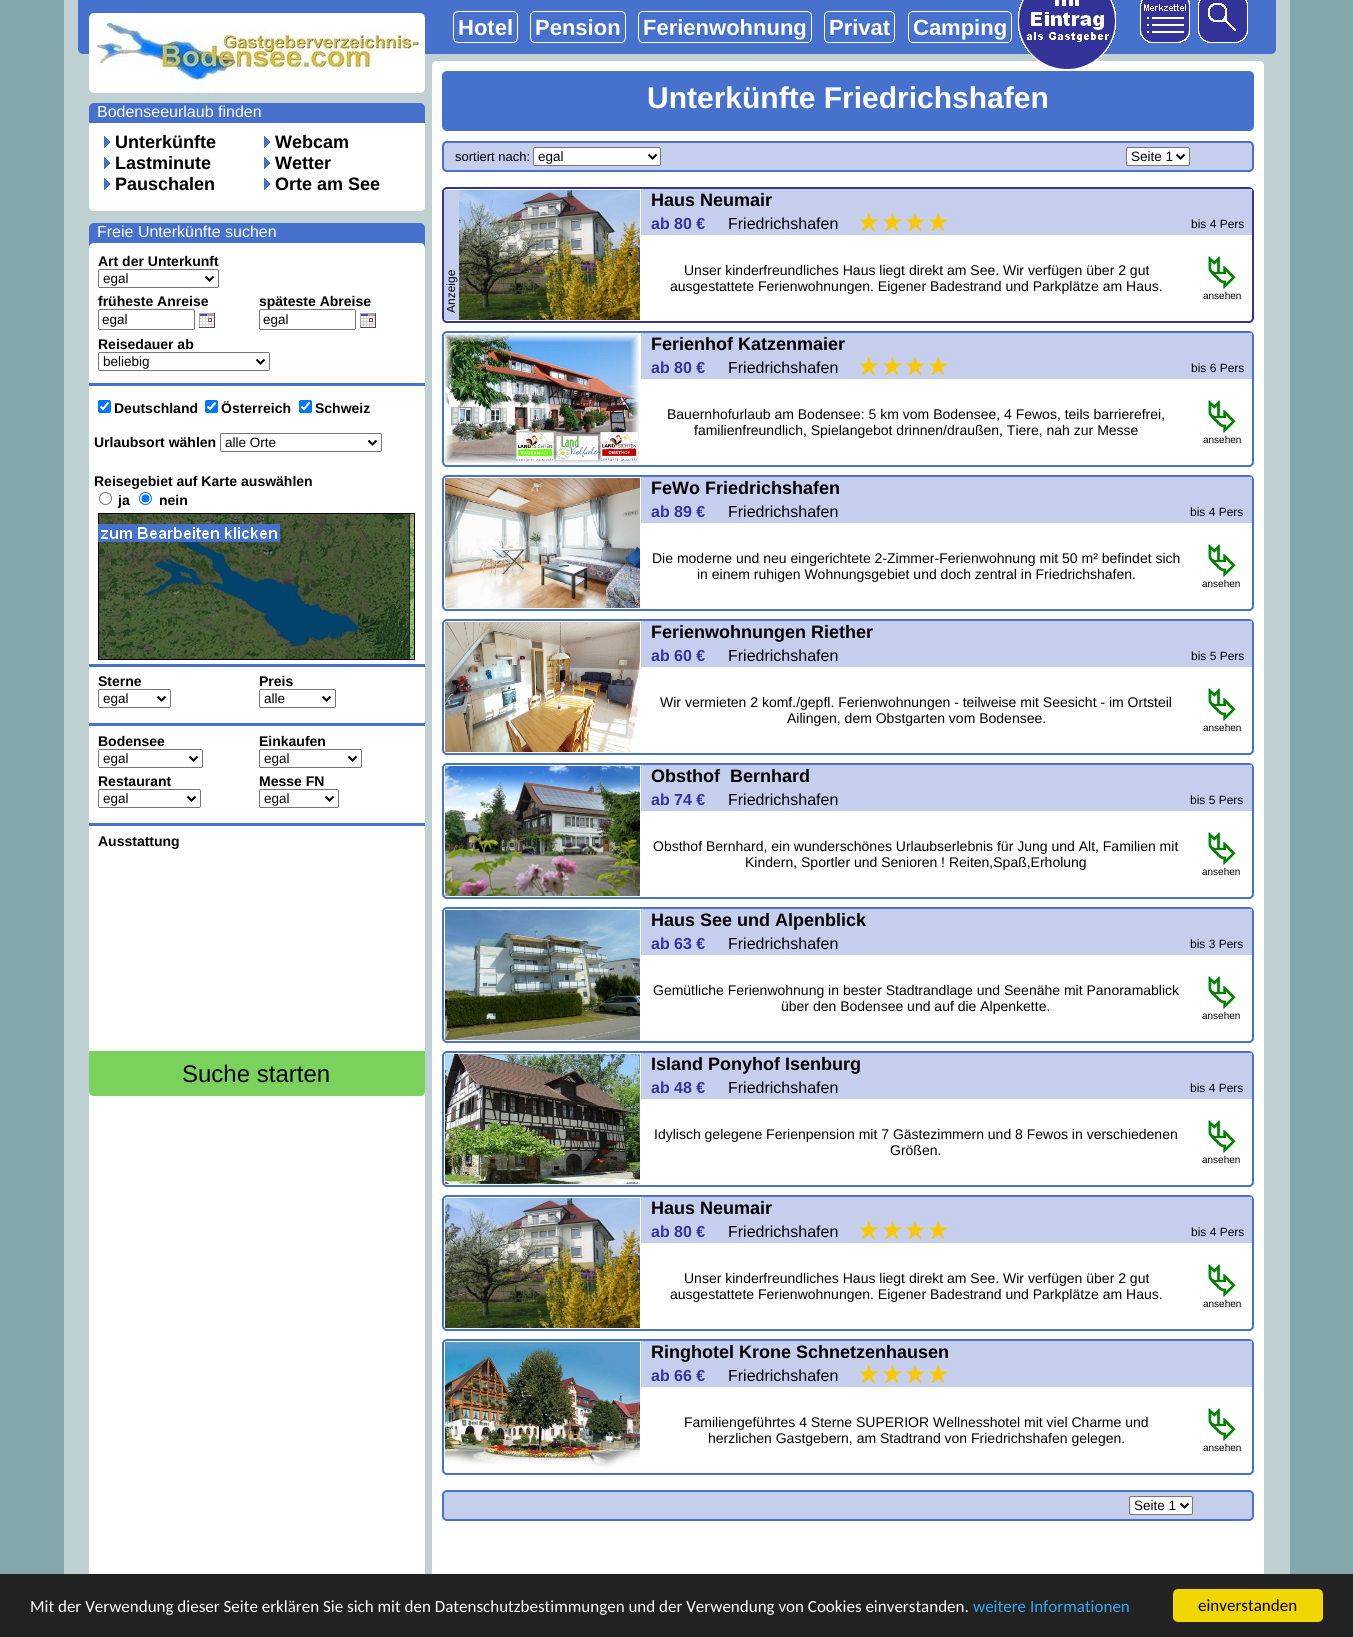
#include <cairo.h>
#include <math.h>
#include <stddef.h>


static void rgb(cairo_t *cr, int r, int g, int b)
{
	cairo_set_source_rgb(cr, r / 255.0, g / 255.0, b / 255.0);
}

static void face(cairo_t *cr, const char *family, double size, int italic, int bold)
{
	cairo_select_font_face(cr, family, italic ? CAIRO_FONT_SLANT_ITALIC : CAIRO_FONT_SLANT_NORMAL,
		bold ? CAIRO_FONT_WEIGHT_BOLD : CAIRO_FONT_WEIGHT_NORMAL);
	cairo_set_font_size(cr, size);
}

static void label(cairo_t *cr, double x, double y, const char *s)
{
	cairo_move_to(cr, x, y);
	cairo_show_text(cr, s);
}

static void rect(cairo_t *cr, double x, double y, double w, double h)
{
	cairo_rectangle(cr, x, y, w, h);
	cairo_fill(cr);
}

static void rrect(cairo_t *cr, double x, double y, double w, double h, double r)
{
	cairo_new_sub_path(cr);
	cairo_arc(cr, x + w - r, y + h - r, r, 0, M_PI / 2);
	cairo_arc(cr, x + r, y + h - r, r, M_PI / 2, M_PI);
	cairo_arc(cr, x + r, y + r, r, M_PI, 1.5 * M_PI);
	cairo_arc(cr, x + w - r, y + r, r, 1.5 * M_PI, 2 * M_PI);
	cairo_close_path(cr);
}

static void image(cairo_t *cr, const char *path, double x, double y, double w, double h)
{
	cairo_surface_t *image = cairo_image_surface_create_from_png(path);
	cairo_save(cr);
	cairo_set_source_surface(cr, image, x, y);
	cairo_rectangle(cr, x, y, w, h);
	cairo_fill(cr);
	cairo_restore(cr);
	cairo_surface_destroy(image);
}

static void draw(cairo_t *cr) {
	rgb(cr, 130, 168, 171);
	cairo_paint(cr);
	rgb(cr, 192, 209, 212);
	rect(cr, 64, 0, 1226, 1574);
	rgb(cr, 70, 113, 205);
	rrect(cr, 78, -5, 1198, 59, 5);
	cairo_fill(cr);
	image(cr, "image0.png", 89, 13, 336, 80);
	rrect(cr, 453.5, 11.5, 64, 31, 4.5);
	rgb(cr, 255, 255, 255);
	cairo_set_line_width(cr, 1);
	cairo_stroke(cr);
	face(cr, "Liberation Sans", 22, 0, 1);
	label(cr, 458, 35, "Hotel");
	rrect(cr, 530.5, 11.5, 95, 31, 4.5);
	cairo_stroke(cr);
	label(cr, 535, 35, "Pension");
	rrect(cr, 638.5, 11.5, 173, 31, 4.5);
	cairo_stroke(cr);
	label(cr, 643, 35, "Ferienwohnung");
	rrect(cr, 824.5, 11.5, 70, 31, 4.5);
	cairo_stroke(cr);
	label(cr, 829, 35, "Privat");
	rrect(cr, 908.5, 11.5, 103, 31, 4.5);
	cairo_stroke(cr);
	label(cr, 913, 35, "Camping");
	rrect(cr, 432, 61, 832, 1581, 5);
	cairo_fill(cr);
	image(cr, "image1.png", 1018, 0, 98, 70);
	image(cr, "image2.png", 1140, 0, 50, 43);
	image(cr, "image3.png", 1198, 0, 50, 43);
	rgb(cr, 70, 113, 205);
	rrect(cr, 89, 103, 336, 92, 5);
	cairo_fill(cr);
	face(cr, "Liberation Sans", 16, 0, 0);
	rgb(cr, 255, 255, 255);
	label(cr, 97, 117, "Bodenseeurlaub finden");
	cairo_new_path(cr);
	cairo_move_to(cr, 89, 123);
	cairo_line_to(cr, 425, 123);
	cairo_line_to(cr, 425, 206);
	cairo_curve_to(cr, 425, 209, 423, 211, 420, 211);
	cairo_line_to(cr, 94, 211);
	cairo_curve_to(cr, 91, 211, 89, 209, 89, 206);
	cairo_close_path(cr);
	cairo_fill(cr);
	image(cr, "image4.png", 104, 136, 6, 12);
	face(cr, "Liberation Sans", 18, 0, 1);
	rgb(cr, 0, 0, 0);
	label(cr, 115, 148, "Unterkünfte");
	image(cr, "image4.png", 104, 157, 6, 12);
	label(cr, 115, 169, "Lastminute");
	image(cr, "image4.png", 104, 178, 6, 12);
	label(cr, 115, 190, "Pauschalen");
	image(cr, "image4.png", 264, 136, 6, 12);
	label(cr, 275, 148, "Webcam");
	image(cr, "image4.png", 264, 157, 6, 12);
	label(cr, 275, 169, "Wetter");
	image(cr, "image4.png", 264, 178, 6, 12);
	label(cr, 275, 190, "Orte am See");
	rgb(cr, 70, 113, 205);
	rrect(cr, 442, 71, 812, 60, 5);
	cairo_fill(cr);
	face(cr, "Liberation Sans", 30, 0, 1);
	rgb(cr, 255, 255, 255);
	label(cr, 647, 108, "Unterkünfte Friedrichshafen");
	rgb(cr, 197, 206, 237);
	rrect(cr, 443, 142, 810, 29, 4);
	cairo_fill_preserve(cr);
	rgb(cr, 70, 113, 205);
	cairo_set_line_width(cr, 2);
	cairo_stroke(cr);
	face(cr, "Liberation Sans", 13, 0, 0);
	rgb(cr, 0, 0, 0);
	label(cr, 455, 161, "sortiert nach:");
	rgb(cr, 255, 255, 255);
	rrect(cr, 533.5, 147.5, 127, 18, 1.5);
	cairo_fill_preserve(cr);
	rgb(cr, 118, 118, 118);
	cairo_set_line_width(cr, 1);
	cairo_stroke(cr);
	cairo_new_path(cr);
	cairo_move_to(cr, 648.5, 154.5);
	cairo_line_to(cr, 652.5, 158.5);
	cairo_line_to(cr, 656.5, 154.5);
	rgb(cr, 0, 0, 0);
	cairo_set_line_width(cr, 2);
	cairo_stroke(cr);
	face(cr, "Liberation Sans", 13.5, 0, 0);
	label(cr, 538, 161, "egal");
	rgb(cr, 255, 255, 255);
	rrect(cr, 1126.5, 147.5, 63, 18, 1.5);
	cairo_fill_preserve(cr);
	rgb(cr, 118, 118, 118);
	cairo_set_line_width(cr, 1);
	cairo_stroke(cr);
	cairo_new_path(cr);
	cairo_move_to(cr, 1176.5, 154.5);
	cairo_line_to(cr, 1180.5, 158.5);
	cairo_line_to(cr, 1184.5, 154.5);
	rgb(cr, 0, 0, 0);
	cairo_set_line_width(cr, 2);
	cairo_stroke(cr);
	label(cr, 1131, 161, "Seite 1");
	rrect(cr, 443, 188, 810, 134, 4);
	rgb(cr, 51, 51, 153);
	cairo_stroke(cr);
	rgb(cr, 197, 206, 237);
	rect(cr, 641, 189, 611, 23);
	face(cr, "Liberation Sans", 18, 0, 1);
	rgb(cr, 0, 0, 0);
	label(cr, 651, 206, "Haus Neumair");
	rgb(cr, 197, 206, 237);
	rect(cr, 444, 190, 15, 130);
	face(cr, "Liberation Sans", 12, 0, 0);
	rgb(cr, 0, 0, 0);
	cairo_save(cr);
	cairo_translate(cr, 455, 313);
	cairo_rotate(cr, -90 * M_PI / 180);
	label(cr, 0, 0, "Anzeige");
	cairo_restore(cr);
	image(cr, "image5.png", 459, 190, 181, 130);
	rgb(cr, 197, 206, 237);
	rect(cr, 641, 212, 611, 23);
	face(cr, "Liberation Sans", 16, 0, 1);
	rgb(cr, 51, 51, 153);
	label(cr, 651, 229, "ab 80 €");
	face(cr, "Liberation Sans", 16, 0, 0);
	rgb(cr, 0, 0, 0);
	label(cr, 728, 229, "Friedrichshafen");
	image(cr, "image6.png", 859, 213, 89, 18);
	face(cr, "Liberation Sans", 12, 0, 0);
	label(cr, 1191, 228, "bis 4 Pers");
	face(cr, "Liberation Sans", 14, 0, 0);
	label(cr, 684, 275, "Unser kinderfreundliches Haus liegt direkt am See. Wir verfügen über 2 gut");
	label(cr, 670, 291, "ausgestattete Ferienwohnungen. Eigener Badestrand und Parkplätze am Haus.");
	image(cr, "image7.png", 1208, 256, 28, 33);
	face(cr, "Liberation Sans", 10, 0, 0);
	label(cr, 1203, 299, "ansehen");
	rrect(cr, 443, 332, 810, 134, 4);
	rgb(cr, 70, 113, 205);
	cairo_stroke(cr);
	image(cr, "image8.png", 445, 334, 194, 130);
	rgb(cr, 197, 206, 237);
	rect(cr, 641, 333, 611, 23);
	face(cr, "Liberation Sans", 18, 0, 1);
	rgb(cr, 0, 0, 0);
	label(cr, 651, 350, "Ferienhof Katzenmaier");
	rgb(cr, 197, 206, 237);
	rect(cr, 641, 356, 611, 23);
	face(cr, "Liberation Sans", 16, 0, 1);
	rgb(cr, 51, 51, 153);
	label(cr, 651, 373, "ab 80 €");
	face(cr, "Liberation Sans", 16, 0, 0);
	rgb(cr, 0, 0, 0);
	label(cr, 728, 373, "Friedrichshafen");
	image(cr, "image6.png", 859, 357, 89, 18);
	face(cr, "Liberation Sans", 12, 0, 0);
	label(cr, 1191, 372, "bis 6 Pers");
	face(cr, "Liberation Sans", 14, 0, 0);
	label(cr, 667, 419, "Bauernhofurlaub am Bodensee: 5 km vom Bodensee, 4 Fewos, teils barrierefrei,");
	label(cr, 694, 435, "familienfreundlich, Spielangebot drinnen/draußen, Tiere, nah zur Messe");
	image(cr, "image7.png", 1208, 400, 28, 33);
	face(cr, "Liberation Sans", 10, 0, 0);
	label(cr, 1203, 443, "ansehen");
	rrect(cr, 443, 476, 810, 134, 4);
	rgb(cr, 70, 113, 205);
	cairo_stroke(cr);
	image(cr, "image9.png", 445, 478, 195, 130);
	rgb(cr, 197, 206, 237);
	rect(cr, 641, 477, 611, 23);
	face(cr, "Liberation Sans", 18, 0, 1);
	rgb(cr, 0, 0, 0);
	label(cr, 651, 494, "FeWo Friedrichshafen");
	rgb(cr, 197, 206, 237);
	rect(cr, 641, 500, 611, 23);
	face(cr, "Liberation Sans", 16, 0, 1);
	rgb(cr, 51, 51, 153);
	label(cr, 651, 517, "ab 89 €");
	face(cr, "Liberation Sans", 16, 0, 0);
	rgb(cr, 0, 0, 0);
	label(cr, 728, 517, "Friedrichshafen");
	face(cr, "Liberation Sans", 12, 0, 0);
	label(cr, 1190, 516, "bis 4 Pers");
	face(cr, "Liberation Sans", 14, 0, 0);
	label(cr, 652, 563, "Die moderne und neu eingerichtete 2-Zimmer-Ferienwohnung mit 50 m² befindet sich");
	label(cr, 697, 579, "in einem ruhigen Wohnungsgebiet und doch zentral in Friedrichshafen.");
	image(cr, "image7.png", 1208, 544, 28, 33);
	face(cr, "Liberation Sans", 10, 0, 0);
	label(cr, 1202, 587, "ansehen");
	rrect(cr, 443, 620, 810, 134, 4);
	rgb(cr, 70, 113, 205);
	cairo_stroke(cr);
	image(cr, "image10.png", 445, 622, 195, 130);
	rgb(cr, 197, 206, 237);
	rect(cr, 641, 621, 611, 23);
	face(cr, "Liberation Sans", 18, 0, 1);
	rgb(cr, 0, 0, 0);
	label(cr, 651, 638, "Ferienwohnungen Riether");
	rgb(cr, 197, 206, 237);
	rect(cr, 641, 644, 611, 23);
	face(cr, "Liberation Sans", 16, 0, 1);
	rgb(cr, 51, 51, 153);
	label(cr, 651, 661, "ab 60 €");
	face(cr, "Liberation Sans", 16, 0, 0);
	rgb(cr, 0, 0, 0);
	label(cr, 728, 661, "Friedrichshafen");
	face(cr, "Liberation Sans", 12, 0, 0);
	label(cr, 1191, 660, "bis 5 Pers");
	face(cr, "Liberation Sans", 14, 0, 0);
	label(cr, 660, 707, "Wir vermieten 2 komf./gepfl. Ferienwohnungen - teilweise mit Seesicht - im Ortsteil");
	label(cr, 787, 723, "Ailingen, dem Obstgarten vom Bodensee.");
	image(cr, "image7.png", 1208, 688, 28, 33);
	face(cr, "Liberation Sans", 10, 0, 0);
	label(cr, 1203, 731, "ansehen");
	rrect(cr, 443, 764, 810, 134, 4);
	rgb(cr, 70, 113, 205);
	cairo_stroke(cr);
	image(cr, "image11.png", 445, 766, 195, 130);
	rgb(cr, 197, 206, 237);
	rect(cr, 641, 765, 611, 23);
	face(cr, "Liberation Sans", 18, 0, 1);
	rgb(cr, 0, 0, 0);
	label(cr, 651, 782, "Obsthof  Bernhard");
	rgb(cr, 197, 206, 237);
	rect(cr, 641, 788, 611, 23);
	face(cr, "Liberation Sans", 16, 0, 1);
	rgb(cr, 51, 51, 153);
	label(cr, 651, 805, "ab 74 €");
	face(cr, "Liberation Sans", 16, 0, 0);
	rgb(cr, 0, 0, 0);
	label(cr, 728, 805, "Friedrichshafen");
	face(cr, "Liberation Sans", 12, 0, 0);
	label(cr, 1190, 804, "bis 5 Pers");
	face(cr, "Liberation Sans", 14, 0, 0);
	label(cr, 653, 851, "Obsthof Bernhard, ein wunderschönes Urlaubserlebnis für Jung und Alt, Familien mit");
	label(cr, 745, 867, "Kindern, Sportler und Senioren ! Reiten,Spaß,Erholung");
	image(cr, "image7.png", 1208, 832, 28, 33);
	face(cr, "Liberation Sans", 10, 0, 0);
	label(cr, 1202, 875, "ansehen");
	rrect(cr, 443, 908, 810, 134, 4);
	rgb(cr, 70, 113, 205);
	cairo_stroke(cr);
	image(cr, "image12.png", 445, 910, 195, 130);
	rgb(cr, 197, 206, 237);
	rect(cr, 641, 909, 611, 23);
	face(cr, "Liberation Sans", 18, 0, 1);
	rgb(cr, 0, 0, 0);
	label(cr, 651, 926, "Haus See und Alpenblick");
	rgb(cr, 197, 206, 237);
	rect(cr, 641, 932, 611, 23);
	face(cr, "Liberation Sans", 16, 0, 1);
	rgb(cr, 51, 51, 153);
	label(cr, 651, 949, "ab 63 €");
	face(cr, "Liberation Sans", 16, 0, 0);
	rgb(cr, 0, 0, 0);
	label(cr, 728, 949, "Friedrichshafen");
	face(cr, "Liberation Sans", 12, 0, 0);
	label(cr, 1190, 948, "bis 3 Pers");
	face(cr, "Liberation Sans", 14, 0, 0);
	label(cr, 653, 995, "Gemütliche Ferienwohnung in bester Stadtrandlage und Seenähe mit Panoramablick");
	label(cr, 781, 1011, "über den Bodensee und auf die Alpenkette.");
	image(cr, "image13.png", 1208, 976, 28, 33);
	face(cr, "Liberation Sans", 10, 0, 0);
	label(cr, 1202, 1019, "ansehen");
	rrect(cr, 443, 1052, 810, 134, 4);
	rgb(cr, 70, 113, 205);
	cairo_stroke(cr);
	image(cr, "image14.png", 445, 1054, 195, 130);
	rgb(cr, 197, 206, 237);
	rect(cr, 641, 1053, 611, 23);
	face(cr, "Liberation Sans", 18, 0, 1);
	rgb(cr, 0, 0, 0);
	label(cr, 651, 1070, "Island Ponyhof Isenburg");
	rgb(cr, 197, 206, 237);
	rect(cr, 641, 1076, 611, 23);
	face(cr, "Liberation Sans", 16, 0, 1);
	rgb(cr, 51, 51, 153);
	label(cr, 651, 1093, "ab 48 €");
	face(cr, "Liberation Sans", 16, 0, 0);
	rgb(cr, 0, 0, 0);
	label(cr, 728, 1093, "Friedrichshafen");
	face(cr, "Liberation Sans", 12, 0, 0);
	label(cr, 1190, 1092, "bis 4 Pers");
	face(cr, "Liberation Sans", 14, 0, 0);
	label(cr, 654, 1139, "Idylisch gelegene Ferienpension mit 7 Gästezimmern und 8 Fewos in verschiedenen");
	label(cr, 890, 1155, "Größen.");
	image(cr, "image7.png", 1208, 1120, 28, 33);
	face(cr, "Liberation Sans", 10, 0, 0);
	label(cr, 1202, 1163, "ansehen");
	rrect(cr, 443, 1196, 810, 134, 4);
	rgb(cr, 70, 113, 205);
	cairo_stroke(cr);
	image(cr, "image15.png", 445, 1198, 195, 130);
	rgb(cr, 197, 206, 237);
	rect(cr, 641, 1197, 611, 23);
	face(cr, "Liberation Sans", 18, 0, 1);
	rgb(cr, 0, 0, 0);
	label(cr, 651, 1214, "Haus Neumair");
	rgb(cr, 197, 206, 237);
	rect(cr, 641, 1220, 611, 23);
	face(cr, "Liberation Sans", 16, 0, 1);
	rgb(cr, 51, 51, 153);
	label(cr, 651, 1237, "ab 80 €");
	face(cr, "Liberation Sans", 16, 0, 0);
	rgb(cr, 0, 0, 0);
	label(cr, 728, 1237, "Friedrichshafen");
	image(cr, "image6.png", 859, 1221, 89, 18);
	face(cr, "Liberation Sans", 12, 0, 0);
	label(cr, 1191, 1236, "bis 4 Pers");
	face(cr, "Liberation Sans", 14, 0, 0);
	label(cr, 684, 1283, "Unser kinderfreundliches Haus liegt direkt am See. Wir verfügen über 2 gut");
	label(cr, 670, 1299, "ausgestattete Ferienwohnungen. Eigener Badestrand und Parkplätze am Haus.");
	image(cr, "image7.png", 1208, 1264, 28, 33);
	face(cr, "Liberation Sans", 10, 0, 0);
	label(cr, 1203, 1307, "ansehen");
	rrect(cr, 443, 1340, 810, 134, 4);
	rgb(cr, 70, 113, 205);
	cairo_stroke(cr);
	image(cr, "image16.png", 445, 1342, 195, 126);
	rgb(cr, 197, 206, 237);
	rect(cr, 641, 1341, 611, 23);
	face(cr, "Liberation Sans", 18, 0, 1);
	rgb(cr, 0, 0, 0);
	label(cr, 651, 1358, "Ringhotel Krone Schnetzenhausen");
	rgb(cr, 197, 206, 237);
	rect(cr, 641, 1364, 611, 23);
	face(cr, "Liberation Sans", 16, 0, 1);
	rgb(cr, 51, 51, 153);
	label(cr, 651, 1381, "ab 66 €");
	face(cr, "Liberation Sans", 16, 0, 0);
	rgb(cr, 0, 0, 0);
	label(cr, 728, 1381, "Friedrichshafen");
	image(cr, "image6.png", 859, 1365, 89, 18);
	face(cr, "Liberation Sans", 14, 0, 0);
	label(cr, 684, 1427, "Familiengeführtes 4 Sterne SUPERIOR Wellnesshotel mit viel Charme und");
	label(cr, 708, 1443, "herzlichen Gastgebern, am Stadtrand von Friedrichshafen gelegen.");
	image(cr, "image13.png", 1208, 1408, 28, 33);
	face(cr, "Liberation Sans", 10, 0, 0);
	label(cr, 1203, 1451, "ansehen");
	rgb(cr, 197, 206, 237);
	rrect(cr, 443, 1491, 810, 29, 4);
	cairo_fill_preserve(cr);
	rgb(cr, 70, 113, 205);
	cairo_stroke(cr);
	rgb(cr, 255, 255, 255);
	rrect(cr, 1129.5, 1496.5, 63, 18, 1.5);
	cairo_fill_preserve(cr);
	rgb(cr, 118, 118, 118);
	cairo_set_line_width(cr, 1);
	cairo_stroke(cr);
	cairo_new_path(cr);
	cairo_move_to(cr, 1180.5, 1503.5);
	cairo_line_to(cr, 1184.5, 1507.5);
	cairo_line_to(cr, 1188.5, 1503.5);
	rgb(cr, 0, 0, 0);
	cairo_set_line_width(cr, 2);
	cairo_stroke(cr);
	face(cr, "Liberation Sans", 13.5, 0, 0);
	label(cr, 1134, 1510, "Seite 1");
	rgb(cr, 70, 113, 205);
	rrect(cr, 89, 223, 336, 813, 5);
	cairo_fill(cr);
	face(cr, "Liberation Sans", 16, 0, 0);
	rgb(cr, 255, 255, 255);
	label(cr, 97, 237, "Freie Unterkünfte suchen");
	rrect(cr, 89, 243, 336, 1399, 5);
	cairo_fill(cr);
	face(cr, "Liberation Sans", 14, 0, 1);
	rgb(cr, 0, 0, 0);
	label(cr, 98, 266, "Art der Unterkunft");
	rrect(cr, 98.5, 269.5, 120, 18, 1.5);
	rgb(cr, 118, 118, 118);
	cairo_set_line_width(cr, 1);
	cairo_stroke(cr);
	cairo_new_path(cr);
	cairo_move_to(cr, 205.5, 276.5);
	cairo_line_to(cr, 209.5, 280.5);
	cairo_line_to(cr, 213.5, 276.5);
	rgb(cr, 0, 0, 0);
	cairo_set_line_width(cr, 2);
	cairo_stroke(cr);
	face(cr, "Liberation Sans", 13.5, 0, 0);
	label(cr, 103, 283, "egal");
	face(cr, "Liberation Sans", 14, 0, 1);
	label(cr, 98, 306, "früheste Anreise");
	rrect(cr, 98.5, 309.5, 96, 20, 1.5);
	rgb(cr, 118, 118, 118);
	cairo_set_line_width(cr, 1);
	cairo_stroke(cr);
	face(cr, "Liberation Sans", 13.5, 0, 0);
	rgb(cr, 0, 0, 0);
	label(cr, 102, 324, "egal");
	image(cr, "image17.png", 199, 313, 16, 15);
	face(cr, "Liberation Sans", 14, 0, 1);
	label(cr, 259, 306, "späteste Abreise");
	rrect(cr, 259.5, 309.5, 96, 20, 1.5);
	rgb(cr, 118, 118, 118);
	cairo_stroke(cr);
	face(cr, "Liberation Sans", 13.5, 0, 0);
	rgb(cr, 0, 0, 0);
	label(cr, 263, 324, "egal");
	image(cr, "image17.png", 360, 313, 16, 15);
	face(cr, "Liberation Sans", 14, 0, 1);
	label(cr, 98, 349, "Reisedauer ab");
	rrect(cr, 98.5, 352.5, 171, 18, 1.5);
	rgb(cr, 118, 118, 118);
	cairo_stroke(cr);
	cairo_new_path(cr);
	cairo_move_to(cr, 256.5, 359.5);
	cairo_line_to(cr, 260.5, 363.5);
	cairo_line_to(cr, 264.5, 359.5);
	rgb(cr, 0, 0, 0);
	cairo_set_line_width(cr, 2);
	cairo_stroke(cr);
	face(cr, "Liberation Sans", 13.5, 0, 0);
	label(cr, 103, 366, "beliebig");
	rgb(cr, 70, 113, 205);
	rect(cr, 89, 383, 336, 3);
	rgb(cr, 0, 117, 255);
	rrect(cr, 98, 400, 13, 13, 2);
	cairo_fill(cr);
	cairo_new_path(cr);
	cairo_move_to(cr, 100.5, 406.5);
	cairo_line_to(cr, 103, 409);
	cairo_line_to(cr, 108.5, 402.5);
	rgb(cr, 255, 255, 255);
	cairo_set_line_width(cr, 2.1);
	cairo_stroke(cr);
	face(cr, "Liberation Sans", 14, 0, 1);
	rgb(cr, 0, 0, 0);
	label(cr, 114, 413, "Deutschland");
	rgb(cr, 0, 117, 255);
	rrect(cr, 205, 400, 13, 13, 2);
	cairo_fill(cr);
	cairo_new_path(cr);
	cairo_move_to(cr, 207.5, 406.5);
	cairo_line_to(cr, 210, 409);
	cairo_line_to(cr, 215.5, 402.5);
	rgb(cr, 255, 255, 255);
	cairo_stroke(cr);
	rgb(cr, 0, 0, 0);
	label(cr, 221, 413, "Österreich");
	rgb(cr, 0, 117, 255);
	rrect(cr, 299, 400, 13, 13, 2);
	cairo_fill(cr);
	cairo_new_path(cr);
	cairo_move_to(cr, 301.5, 406.5);
	cairo_line_to(cr, 304, 409);
	cairo_line_to(cr, 309.5, 402.5);
	rgb(cr, 255, 255, 255);
	cairo_stroke(cr);
	rgb(cr, 0, 0, 0);
	label(cr, 315, 413, "Schweiz");
	label(cr, 94, 447, "Urlaubsort wählen");
	rrect(cr, 220.5, 433.5, 161, 18, 1.5);
	rgb(cr, 118, 118, 118);
	cairo_set_line_width(cr, 1);
	cairo_stroke(cr);
	cairo_new_path(cr);
	cairo_move_to(cr, 368.5, 440.5);
	cairo_line_to(cr, 372.5, 444.5);
	cairo_line_to(cr, 376.5, 440.5);
	rgb(cr, 0, 0, 0);
	cairo_set_line_width(cr, 2);
	cairo_stroke(cr);
	face(cr, "Liberation Sans", 13.5, 0, 0);
	label(cr, 225, 447, "alle Orte");
	face(cr, "Liberation Sans", 14, 0, 1);
	label(cr, 94, 486, "Reisegebiet auf Karte auswählen");
	cairo_new_path(cr);
	cairo_arc(cr, 105.5, 498.5, 6, 0, 2 * M_PI);
	rgb(cr, 118, 118, 118);
	cairo_set_line_width(cr, 1);
	cairo_stroke(cr);
	rgb(cr, 0, 0, 0);
	label(cr, 118, 505, "ja");
	cairo_new_path(cr);
	cairo_arc(cr, 145.5, 498.5, 6, 0, 2 * M_PI);
	rgb(cr, 0, 117, 255);
	cairo_stroke(cr);
	cairo_arc(cr, 145.5, 498.5, 4, 0, 2 * M_PI);
	cairo_fill(cr);
	rgb(cr, 0, 0, 0);
	label(cr, 159, 505, "nein");
	image(cr, "image18.png", 99, 514, 315, 145);
	cairo_rectangle(cr, 98.5, 513.5, 316, 146);
	cairo_stroke(cr);
	cairo_set_source_rgba(cr, 0, 0, 0, 0.5);
	rect(cr, 99, 514, 311, 145);
	cairo_rectangle(cr, 98.5, 513.5, 311, 146);
	cairo_stroke(cr);
	image(cr, "image19.png", 98, 524, 182, 18);
	rgb(cr, 70, 113, 205);
	rect(cr, 89, 664, 336, 3);
	rgb(cr, 0, 0, 0);
	label(cr, 98, 686, "Sterne");
	rrect(cr, 98.5, 689.5, 72, 18, 1.5);
	rgb(cr, 118, 118, 118);
	cairo_stroke(cr);
	cairo_new_path(cr);
	cairo_move_to(cr, 157.5, 696.5);
	cairo_line_to(cr, 161.5, 700.5);
	cairo_line_to(cr, 165.5, 696.5);
	rgb(cr, 0, 0, 0);
	cairo_set_line_width(cr, 2);
	cairo_stroke(cr);
	face(cr, "Liberation Sans", 13.5, 0, 0);
	label(cr, 103, 703, "egal");
	face(cr, "Liberation Sans", 14, 0, 1);
	label(cr, 259, 686, "Preis");
	rrect(cr, 259.5, 689.5, 76, 18, 1.5);
	rgb(cr, 118, 118, 118);
	cairo_set_line_width(cr, 1);
	cairo_stroke(cr);
	cairo_new_path(cr);
	cairo_move_to(cr, 322.5, 696.5);
	cairo_line_to(cr, 326.5, 700.5);
	cairo_line_to(cr, 330.5, 696.5);
	rgb(cr, 0, 0, 0);
	cairo_set_line_width(cr, 2);
	cairo_stroke(cr);
	face(cr, "Liberation Sans", 13.5, 0, 0);
	label(cr, 264, 703, "alle");
	rgb(cr, 70, 113, 205);
	rect(cr, 89, 723, 336, 3);
	face(cr, "Liberation Sans", 14, 0, 1);
	rgb(cr, 0, 0, 0);
	label(cr, 98, 746, "Bodensee");
	rrect(cr, 98.5, 749.5, 104, 18, 1.5);
	rgb(cr, 118, 118, 118);
	cairo_set_line_width(cr, 1);
	cairo_stroke(cr);
	cairo_new_path(cr);
	cairo_move_to(cr, 189.5, 756.5);
	cairo_line_to(cr, 193.5, 760.5);
	cairo_line_to(cr, 197.5, 756.5);
	rgb(cr, 0, 0, 0);
	cairo_set_line_width(cr, 2);
	cairo_stroke(cr);
	face(cr, "Liberation Sans", 13.5, 0, 0);
	label(cr, 103, 763, "egal");
	face(cr, "Liberation Sans", 14, 0, 1);
	label(cr, 259, 746, "Einkaufen");
	rrect(cr, 259.5, 749.5, 102, 18, 1.5);
	rgb(cr, 118, 118, 118);
	cairo_set_line_width(cr, 1);
	cairo_stroke(cr);
	cairo_new_path(cr);
	cairo_move_to(cr, 348.5, 756.5);
	cairo_line_to(cr, 352.5, 760.5);
	cairo_line_to(cr, 356.5, 756.5);
	rgb(cr, 0, 0, 0);
	cairo_set_line_width(cr, 2);
	cairo_stroke(cr);
	face(cr, "Liberation Sans", 13.5, 0, 0);
	label(cr, 264, 763, "egal");
	face(cr, "Liberation Sans", 14, 0, 1);
	label(cr, 98, 786, "Restaurant");
	rrect(cr, 98.5, 789.5, 102, 18, 1.5);
	rgb(cr, 118, 118, 118);
	cairo_set_line_width(cr, 1);
	cairo_stroke(cr);
	cairo_new_path(cr);
	cairo_move_to(cr, 187.5, 796.5);
	cairo_line_to(cr, 191.5, 800.5);
	cairo_line_to(cr, 195.5, 796.5);
	rgb(cr, 0, 0, 0);
	cairo_set_line_width(cr, 2);
	cairo_stroke(cr);
	face(cr, "Liberation Sans", 13.5, 0, 0);
	label(cr, 103, 803, "egal");
	face(cr, "Liberation Sans", 14, 0, 1);
	label(cr, 259, 786, "Messe FN");
	rrect(cr, 259.5, 789.5, 79, 18, 1.5);
	rgb(cr, 118, 118, 118);
	cairo_set_line_width(cr, 1);
	cairo_stroke(cr);
	cairo_new_path(cr);
	cairo_move_to(cr, 325.5, 796.5);
	cairo_line_to(cr, 329.5, 800.5);
	cairo_line_to(cr, 333.5, 796.5);
	rgb(cr, 0, 0, 0);
	cairo_set_line_width(cr, 2);
	cairo_stroke(cr);
	face(cr, "Liberation Sans", 13.5, 0, 0);
	label(cr, 264, 803, "egal");
	rgb(cr, 70, 113, 205);
	rect(cr, 89, 823, 336, 3);
	face(cr, "Liberation Sans", 14, 0, 1);
	rgb(cr, 0, 0, 0);
	label(cr, 98, 846, "Ausstattung");
	rgb(cr, 122, 209, 92);
	cairo_new_path(cr);
	cairo_move_to(cr, 89, 1051);
	cairo_line_to(cr, 425, 1051);
	cairo_line_to(cr, 425, 1091);
	cairo_curve_to(cr, 425, 1094, 423, 1096, 420, 1096);
	cairo_line_to(cr, 94, 1096);
	cairo_curve_to(cr, 91, 1096, 89, 1094, 89, 1091);
	cairo_close_path(cr);
	cairo_fill(cr);
	face(cr, "Liberation Sans", 24, 0, 0);
	rgb(cr, 0, 0, 0);
	label(cr, 182, 1082, "Suche starten");
	rgb(cr, 34, 34, 34);
	rect(cr, 0, 1574, 1353, 63);
	face(cr, "Carlito", 17, 0, 0);
	rgb(cr, 255, 255, 255);
	label(cr, 30, 1612, "Mit der Verwendung dieser Seite erklären Sie sich mit den Datenschutzbestimmungen und der Verwendung von Cookies einverstanden.");
	rgb(cr, 49, 168, 240);
	label(cr, 973, 1612, "weitere Informationen");
	rgb(cr, 241, 214, 0);
	rrect(cr, 1173, 1589, 150, 33, 5);
	cairo_fill(cr);
	rgb(cr, 0, 0, 0);
	label(cr, 1198, 1611, "einverstanden");
}

int main(void) {
	cairo_surface_t *surface = cairo_image_surface_create(CAIRO_FORMAT_RGB24, 1353, 1637);
	cairo_t *cr = cairo_create(surface);
	cairo_font_options_t *options = cairo_font_options_create();
	cairo_font_options_set_hint_metrics(options, CAIRO_HINT_METRICS_OFF);
	cairo_font_options_set_hint_style(options, CAIRO_HINT_STYLE_NONE);
	cairo_set_font_options(cr, options);
	cairo_set_miter_limit(cr, 4);
	draw(cr);
	cairo_surface_write_to_png(surface, "render.png");
	cairo_font_options_destroy(options);
	cairo_destroy(cr);
	cairo_surface_destroy(surface);
	return 0;
}
